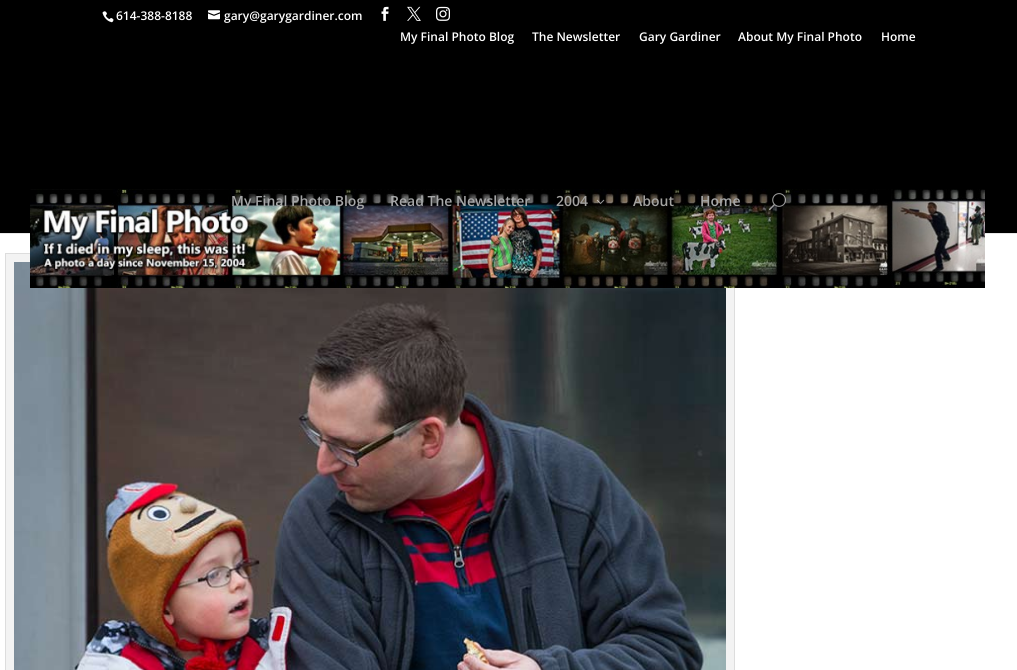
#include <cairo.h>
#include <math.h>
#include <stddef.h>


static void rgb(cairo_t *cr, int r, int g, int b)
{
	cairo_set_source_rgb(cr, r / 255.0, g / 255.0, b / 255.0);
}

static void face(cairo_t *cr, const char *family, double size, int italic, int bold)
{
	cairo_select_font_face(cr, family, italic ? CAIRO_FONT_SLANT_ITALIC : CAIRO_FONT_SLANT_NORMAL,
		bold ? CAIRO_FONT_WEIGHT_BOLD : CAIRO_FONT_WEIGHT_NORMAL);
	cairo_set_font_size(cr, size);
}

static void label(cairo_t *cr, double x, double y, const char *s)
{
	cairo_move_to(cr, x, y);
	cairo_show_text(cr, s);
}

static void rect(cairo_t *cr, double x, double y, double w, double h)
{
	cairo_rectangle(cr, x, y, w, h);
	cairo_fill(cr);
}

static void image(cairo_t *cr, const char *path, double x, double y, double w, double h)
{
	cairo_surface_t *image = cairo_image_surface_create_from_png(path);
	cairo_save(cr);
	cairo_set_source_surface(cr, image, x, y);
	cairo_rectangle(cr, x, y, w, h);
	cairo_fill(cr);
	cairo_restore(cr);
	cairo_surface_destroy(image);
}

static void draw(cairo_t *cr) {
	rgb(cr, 255, 255, 255);
	cairo_paint(cr);
	rgb(cr, 0, 0, 0);
	rect(cr, 0, 0, 1017, 233);
	image(cr, "image0.png", 102, 11, 12, 12);
	face(cr, "Open Sans SemiBold", 12, 0, 0);
	rgb(cr, 255, 255, 255);
	label(cr, 116, 20, "614-388-8188");
	image(cr, "image1.png", 208, 10, 12, 10);
	label(cr, 224, 20, "gary@garygardiner.com");
	image(cr, "image2.png", 381, 6, 8, 15);
	image(cr, "image3.png", 407, 6, 14, 15);
	image(cr, "image4.png", 436, 6, 14, 15);
	label(cr, 400, 41, "My Final Photo Blog");
	label(cr, 532, 41, "The Newsletter");
	label(cr, 639, 41, "Gary Gardiner");
	label(cr, 738, 41, "About My Final Photo");
	label(cr, 881, 41, "Home");
	rgb(cr, 230, 230, 230);
	rect(cr, 0, 233, 1017, 1);
	rgb(cr, 243, 243, 243);
	cairo_rectangle(cr, 5.5, 253.5, 729, 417);
	cairo_fill_preserve(cr);
	rgb(cr, 221, 221, 221);
	cairo_set_line_width(cr, 1);
	cairo_stroke(cr);
	image(cr, "image8.png", 14, 262, 712, 408);
	image(cr, "image5.png", 30, 189, 955, 99);
	face(cr, "Open Sans SemiBold", 14, 0, 0);
	rgb(cr, 166, 167, 168);
	label(cr, 231, 206, "My Final Photo Blog");
	label(cr, 390, 206, "Read The Newsletter");
	rgb(cr, 164, 163, 161);
	label(cr, 556, 206, "2004");
	image(cr, "image6.png", 596, 199, 9, 5);
	label(cr, 633, 206, "About");
	rgb(cr, 166, 167, 168);
	label(cr, 700, 206, "Home");
	image(cr, "image7.png", 769, 193, 17, 18);
}

int main(void) {
	cairo_surface_t *surface = cairo_image_surface_create(CAIRO_FORMAT_RGB24, 1017, 670);
	cairo_t *cr = cairo_create(surface);
	cairo_font_options_t *options = cairo_font_options_create();
	cairo_font_options_set_hint_metrics(options, CAIRO_HINT_METRICS_OFF);
	cairo_font_options_set_hint_style(options, CAIRO_HINT_STYLE_NONE);
	cairo_set_font_options(cr, options);
	cairo_set_miter_limit(cr, 4);
	draw(cr);
	cairo_surface_write_to_png(surface, "render.png");
	cairo_font_options_destroy(options);
	cairo_destroy(cr);
	cairo_surface_destroy(surface);
	return 0;
}
